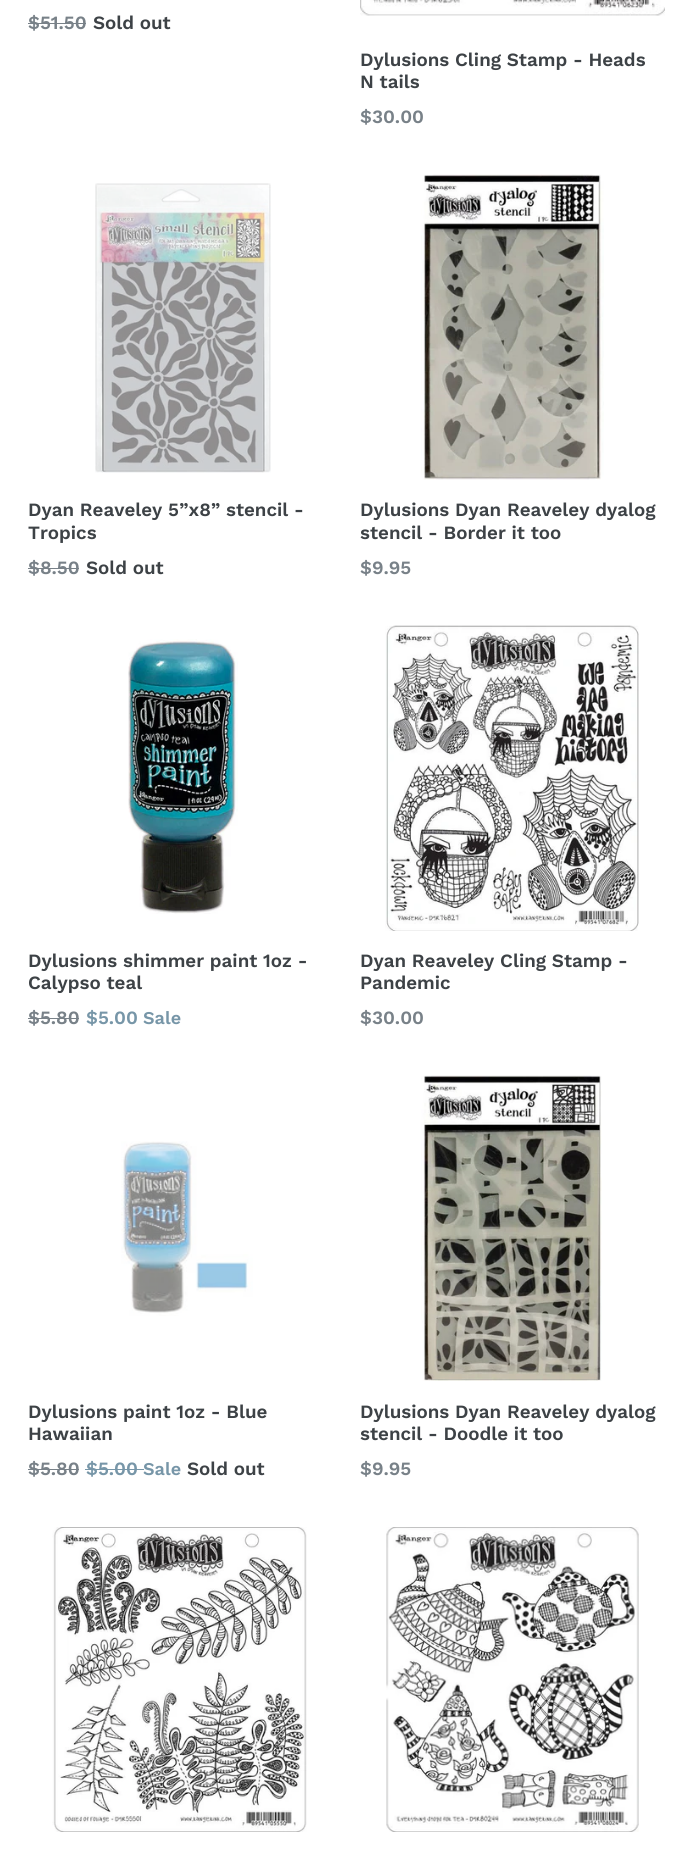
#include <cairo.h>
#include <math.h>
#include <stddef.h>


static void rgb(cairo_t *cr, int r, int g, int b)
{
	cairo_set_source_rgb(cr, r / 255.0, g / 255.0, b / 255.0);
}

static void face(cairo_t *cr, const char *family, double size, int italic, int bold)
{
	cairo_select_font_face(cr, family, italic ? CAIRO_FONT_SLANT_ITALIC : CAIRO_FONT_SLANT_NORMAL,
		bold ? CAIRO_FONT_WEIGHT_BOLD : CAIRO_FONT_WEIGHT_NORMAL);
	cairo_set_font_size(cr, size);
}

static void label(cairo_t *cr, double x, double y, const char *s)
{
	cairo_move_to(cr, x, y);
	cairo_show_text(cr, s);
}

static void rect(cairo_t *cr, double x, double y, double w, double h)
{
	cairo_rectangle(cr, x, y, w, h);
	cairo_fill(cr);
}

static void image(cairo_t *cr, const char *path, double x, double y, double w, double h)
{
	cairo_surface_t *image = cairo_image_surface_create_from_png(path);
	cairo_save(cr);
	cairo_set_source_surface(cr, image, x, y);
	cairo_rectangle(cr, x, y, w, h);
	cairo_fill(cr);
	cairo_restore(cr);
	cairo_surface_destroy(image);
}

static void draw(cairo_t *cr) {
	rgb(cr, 255, 255, 255);
	cairo_paint(cr);
	face(cr, "Work Sans SemiBold", 18.75, 0, 0);
	rgb(cr, 120, 129, 136);
	label(cr, 28, 29, "$51.50");
	rect(cr, 28, 23, 58, 1);
	rgb(cr, 61, 66, 70);
	label(cr, 93, 29, "Sold out");
	image(cr, "image0.png", 360, 0, 305, 16);
	label(cr, 360, 66, "Dylusions Cling Stamp - Heads");
	label(cr, 360, 88, "N tails");
	rgb(cr, 120, 129, 136);
	label(cr, 360, 123, "$30.00");
	image(cr, "image1.png", 95, 183, 176, 290);
	rgb(cr, 61, 66, 70);
	label(cr, 28, 516, "Dyan Reaveley 5”x8” stencil -");
	label(cr, 28, 539, "Tropics");
	rgb(cr, 120, 129, 136);
	label(cr, 28, 574, "$8.50");
	rect(cr, 28, 568, 51, 1);
	rgb(cr, 61, 66, 70);
	label(cr, 86, 574, "Sold out");
	image(cr, "image2.png", 421, 174, 183, 306);
	label(cr, 360, 516, "Dylusions Dyan Reaveley dyalog");
	label(cr, 360, 539, "stencil - Border it too");
	rgb(cr, 120, 129, 136);
	label(cr, 360, 574, "$9.95");
	image(cr, "image3.png", 128, 639, 110, 275);
	rgb(cr, 61, 66, 70);
	label(cr, 28, 967, "Dylusions shimmer paint 1oz -");
	label(cr, 28, 989, "Calypso teal");
	rgb(cr, 120, 129, 136);
	label(cr, 28, 1024, "$5.80");
	rect(cr, 28, 1018, 51, 1);
	rgb(cr, 119, 150, 168);
	label(cr, 86, 1024, "$5.00");
	face(cr, "Work Sans SemiBold", 18, 0, 0);
	label(cr, 143, 1024, "Sale");
	image(cr, "image4.png", 385, 625, 254, 306);
	face(cr, "Work Sans SemiBold", 18.75, 0, 0);
	rgb(cr, 61, 66, 70);
	label(cr, 360, 967, "Dyan Reaveley Cling Stamp -");
	label(cr, 360, 989, "Pandemic");
	rgb(cr, 120, 129, 136);
	label(cr, 360, 1024, "$30.00");
	image(cr, "image5.png", 121, 1141, 132, 175);
	rgb(cr, 61, 66, 70);
	label(cr, 28, 1418, "Dylusions paint 1oz - Blue");
	label(cr, 28, 1440, "Hawaiian");
	rgb(cr, 120, 129, 136);
	label(cr, 28, 1475, "$5.80");
	rect(cr, 28, 1469, 51, 1);
	rgb(cr, 119, 150, 168);
	label(cr, 86, 1475, "$5.00");
	rect(cr, 85, 1469, 59, 1);
	face(cr, "Work Sans SemiBold", 18, 0, 0);
	label(cr, 143, 1475, "Sale");
	face(cr, "Work Sans SemiBold", 18.75, 0, 0);
	rgb(cr, 61, 66, 70);
	label(cr, 187, 1475, "Sold out");
	image(cr, "image6.png", 421, 1075, 181, 306);
	label(cr, 360, 1418, "Dylusions Dyan Reaveley dyalog");
	label(cr, 360, 1440, "stencil - Doodle it too");
	rgb(cr, 120, 129, 136);
	label(cr, 360, 1475, "$9.95");
	image(cr, "image7.png", 52, 1527, 255, 305);
	image(cr, "image8.png", 386, 1527, 253, 305);
}

int main(void) {
	cairo_surface_t *surface = cairo_image_surface_create(CAIRO_FORMAT_RGB24, 692, 1862);
	cairo_t *cr = cairo_create(surface);
	cairo_font_options_t *options = cairo_font_options_create();
	cairo_font_options_set_hint_metrics(options, CAIRO_HINT_METRICS_OFF);
	cairo_font_options_set_hint_style(options, CAIRO_HINT_STYLE_NONE);
	cairo_set_font_options(cr, options);
	cairo_set_miter_limit(cr, 4);
	draw(cr);
	cairo_surface_write_to_png(surface, "render.png");
	cairo_font_options_destroy(options);
	cairo_destroy(cr);
	cairo_surface_destroy(surface);
	return 0;
}
